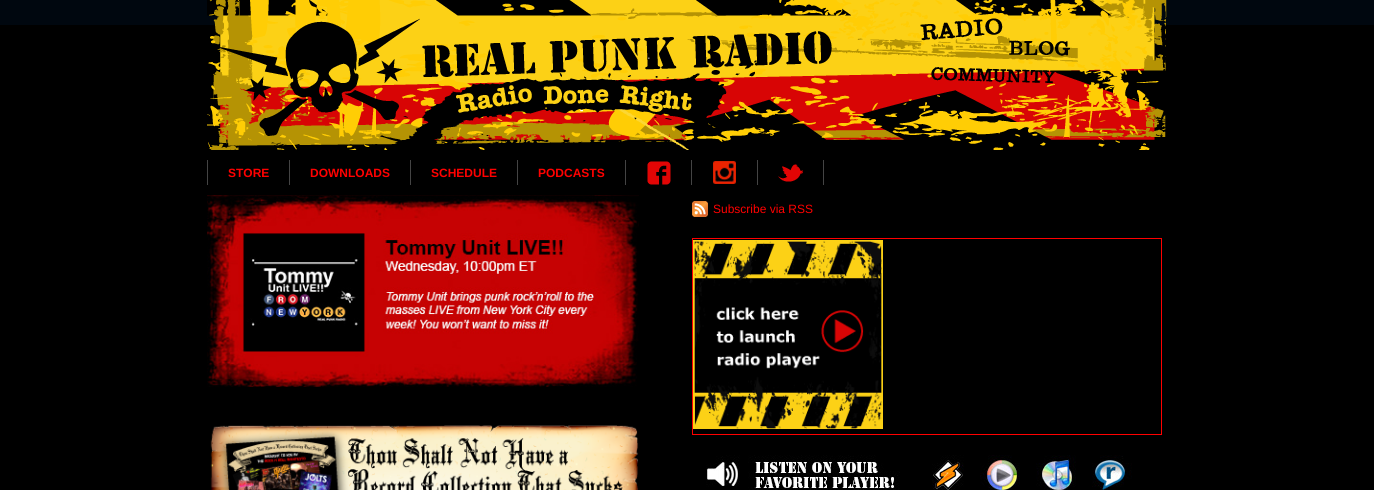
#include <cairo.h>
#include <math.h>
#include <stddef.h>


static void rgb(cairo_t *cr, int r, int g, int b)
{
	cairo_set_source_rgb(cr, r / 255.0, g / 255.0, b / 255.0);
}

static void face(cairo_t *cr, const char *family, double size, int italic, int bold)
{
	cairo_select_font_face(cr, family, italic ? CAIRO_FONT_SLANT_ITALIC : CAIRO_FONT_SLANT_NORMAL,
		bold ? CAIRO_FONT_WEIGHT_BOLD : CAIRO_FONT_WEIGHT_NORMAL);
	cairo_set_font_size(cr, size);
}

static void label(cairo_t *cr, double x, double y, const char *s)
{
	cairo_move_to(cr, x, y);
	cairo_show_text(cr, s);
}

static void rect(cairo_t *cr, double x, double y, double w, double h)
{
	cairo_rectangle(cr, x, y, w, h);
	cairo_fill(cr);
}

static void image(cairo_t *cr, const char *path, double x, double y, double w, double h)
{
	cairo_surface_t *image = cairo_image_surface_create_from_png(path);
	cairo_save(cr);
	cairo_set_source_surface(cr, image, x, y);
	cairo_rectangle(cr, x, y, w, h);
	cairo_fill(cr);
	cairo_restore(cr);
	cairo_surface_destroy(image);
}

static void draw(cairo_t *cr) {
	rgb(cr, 0, 0, 0);
	cairo_paint(cr);
	rgb(cr, 0, 7, 15);
	rect(cr, 0, 0, 1374, 25);
	image(cr, "image0.png", 207, 0, 960, 150);
	rgb(cr, 68, 68, 68);
	rect(cr, 207, 160, 1, 25);
	rect(cr, 289, 160, 1, 25);
	face(cr, "Liberation Sans", 12, 0, 1);
	rgb(cr, 255, 0, 0);
	label(cr, 228, 177, "STORE");
	rgb(cr, 68, 68, 68);
	rect(cr, 410, 160, 1, 25);
	rgb(cr, 255, 0, 0);
	label(cr, 310, 177, "DOWNLOADS");
	rgb(cr, 68, 68, 68);
	rect(cr, 517, 160, 1, 25);
	rgb(cr, 255, 0, 0);
	label(cr, 431, 177, "SCHEDULE");
	rgb(cr, 68, 68, 68);
	rect(cr, 625, 160, 1, 25);
	rgb(cr, 255, 0, 0);
	label(cr, 538, 177, "PODCASTS");
	rgb(cr, 68, 68, 68);
	rect(cr, 691, 160, 1, 25);
	image(cr, "image1.png", 647, 161, 24, 24);
	rect(cr, 757, 160, 1, 25);
	image(cr, "image2.png", 713, 161, 23, 23);
	rect(cr, 823, 160, 1, 25);
	image(cr, "image3.png", 778, 164, 25, 18);
	image(cr, "image4.png", 207, 195, 432, 192);
	image(cr, "image5.png", 210, 425, 429, 65);
	image(cr, "image6.png", 692, 201, 16, 16);
	face(cr, "Liberation Sans", 12, 0, 0);
	rgb(cr, 255, 0, 0);
	label(cr, 713, 213, "Subscribe via RSS");
	rect(cr, 692, 238, 470, 1);
	rect(cr, 1161, 238, 1, 197);
	rect(cr, 692, 434, 470, 1);
	rect(cr, 692, 238, 1, 197);
	image(cr, "image7.png", 693, 240, 190, 189);
	image(cr, "image8.png", 706, 455, 426, 35);
}

int main(void) {
	cairo_surface_t *surface = cairo_image_surface_create(CAIRO_FORMAT_RGB24, 1374, 490);
	cairo_t *cr = cairo_create(surface);
	cairo_font_options_t *options = cairo_font_options_create();
	cairo_font_options_set_hint_metrics(options, CAIRO_HINT_METRICS_OFF);
	cairo_font_options_set_hint_style(options, CAIRO_HINT_STYLE_NONE);
	cairo_set_font_options(cr, options);
	cairo_set_miter_limit(cr, 4);
	draw(cr);
	cairo_surface_write_to_png(surface, "render.png");
	cairo_font_options_destroy(options);
	cairo_destroy(cr);
	cairo_surface_destroy(surface);
	return 0;
}
